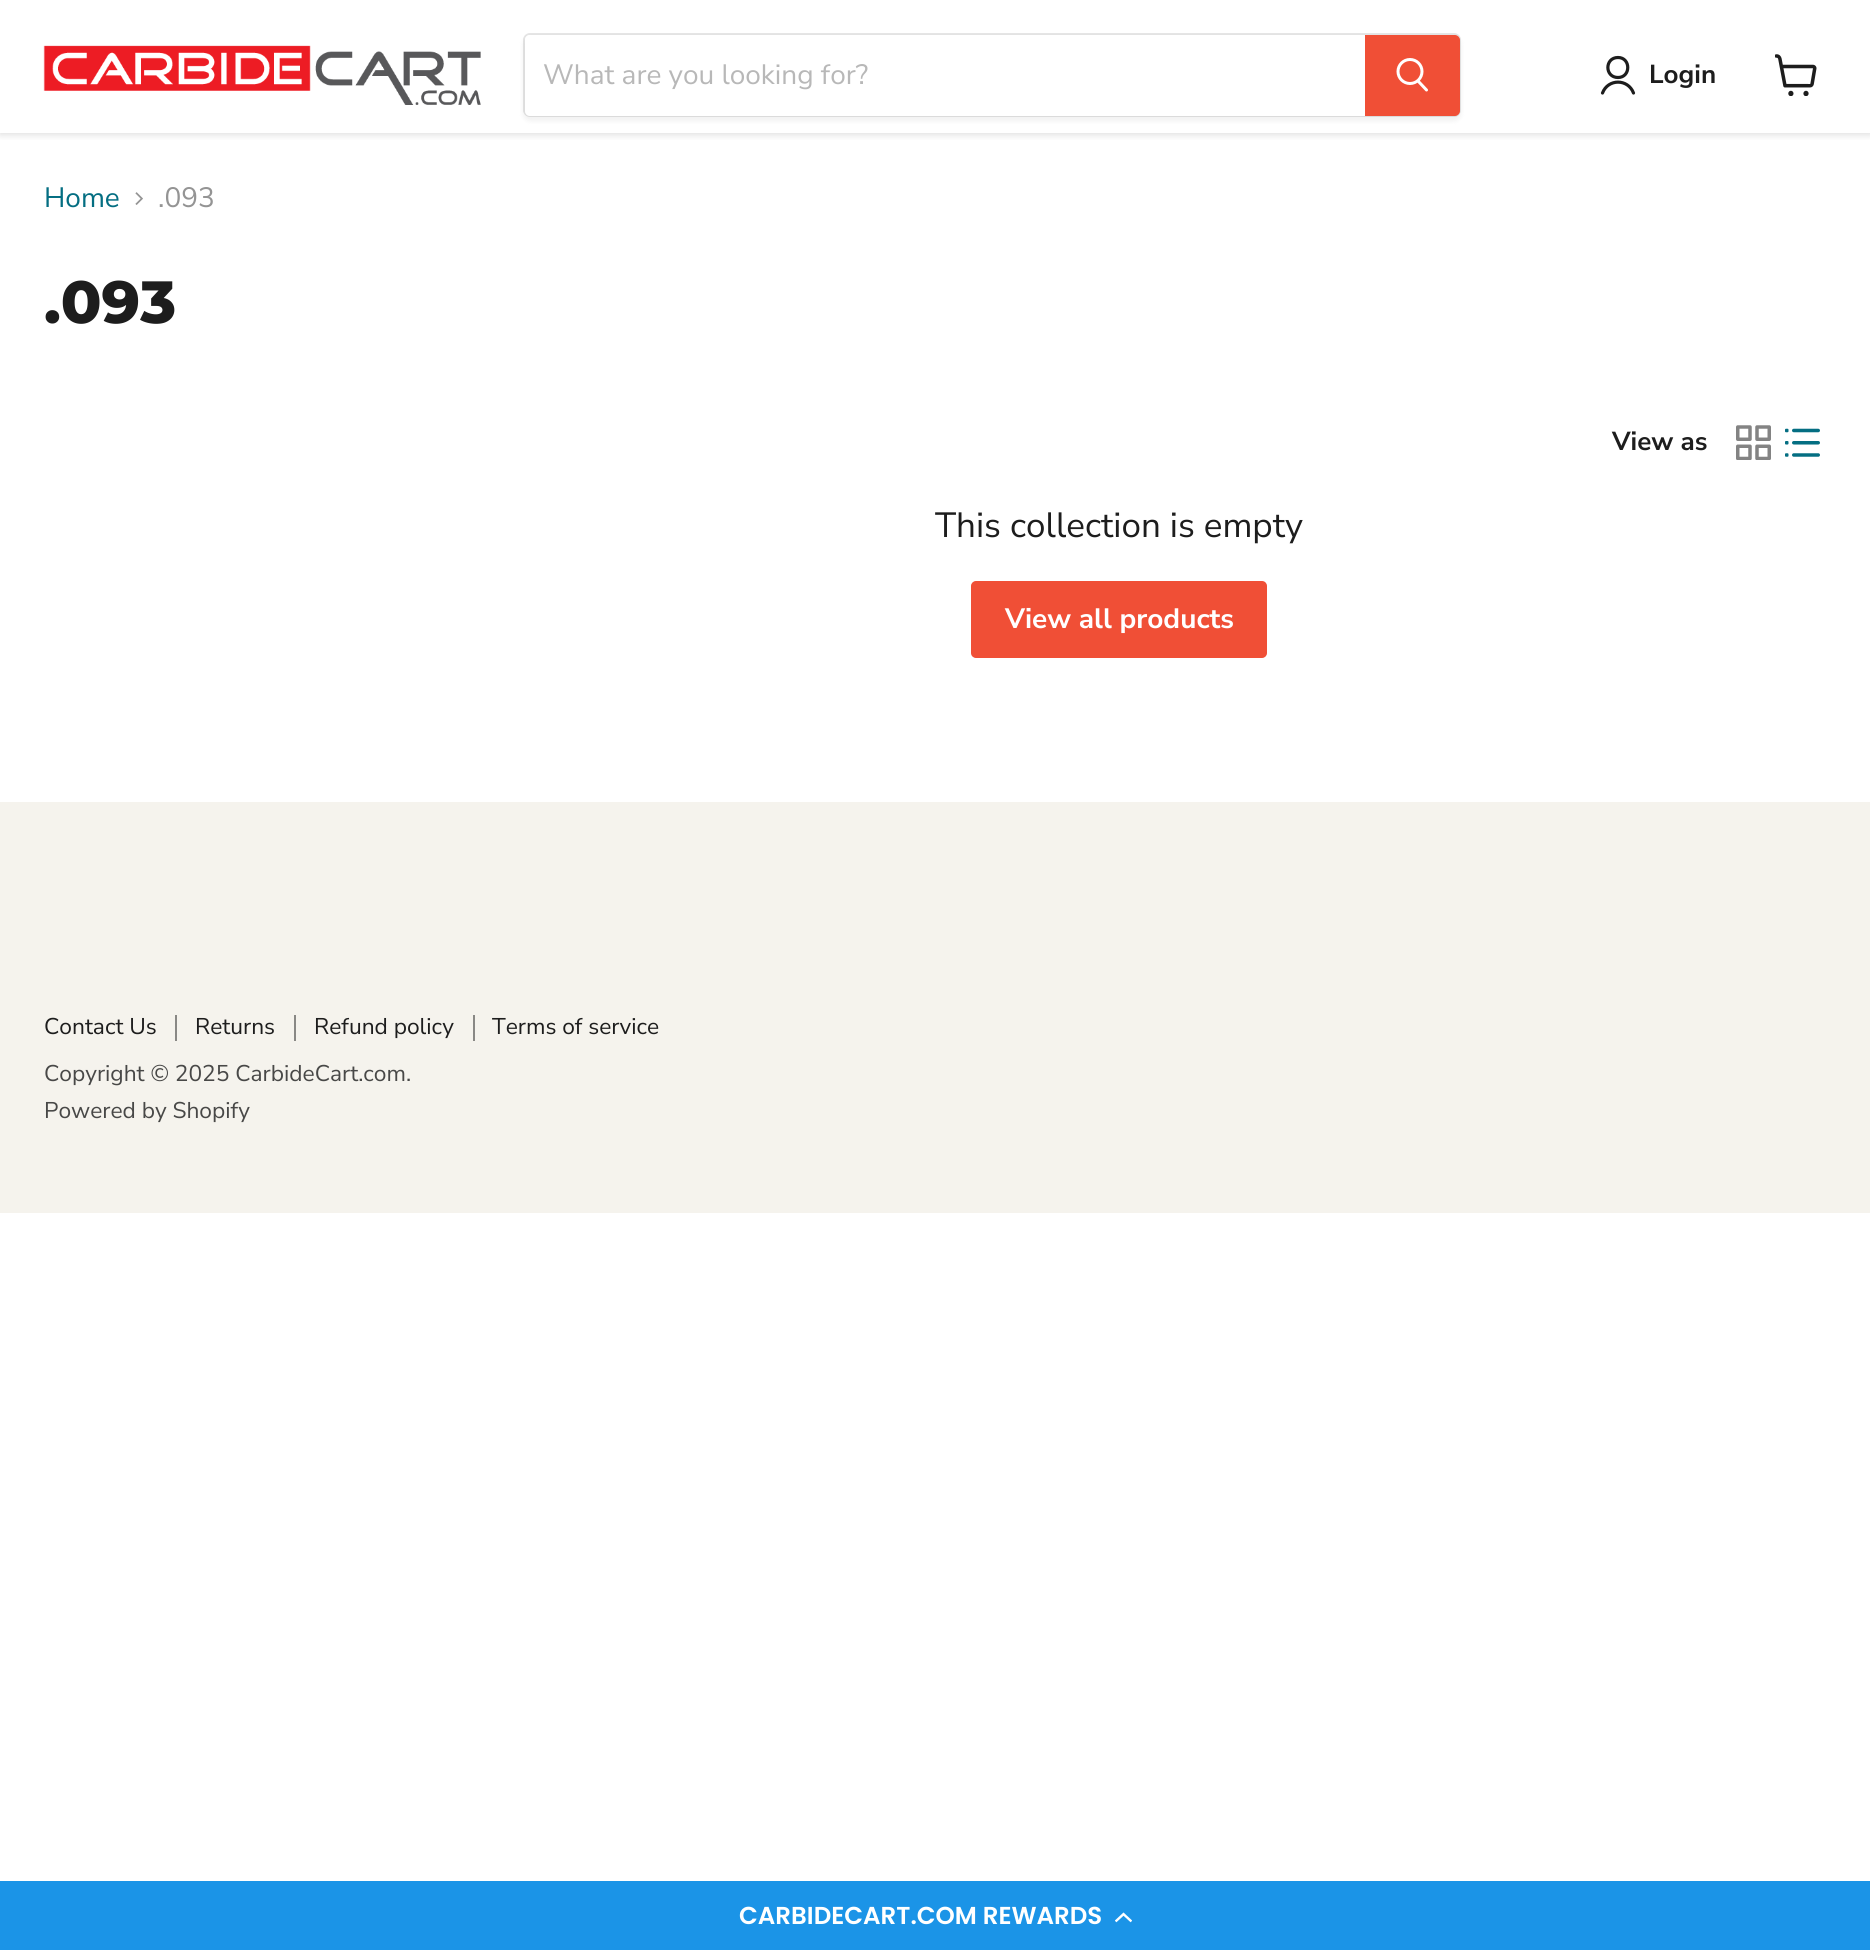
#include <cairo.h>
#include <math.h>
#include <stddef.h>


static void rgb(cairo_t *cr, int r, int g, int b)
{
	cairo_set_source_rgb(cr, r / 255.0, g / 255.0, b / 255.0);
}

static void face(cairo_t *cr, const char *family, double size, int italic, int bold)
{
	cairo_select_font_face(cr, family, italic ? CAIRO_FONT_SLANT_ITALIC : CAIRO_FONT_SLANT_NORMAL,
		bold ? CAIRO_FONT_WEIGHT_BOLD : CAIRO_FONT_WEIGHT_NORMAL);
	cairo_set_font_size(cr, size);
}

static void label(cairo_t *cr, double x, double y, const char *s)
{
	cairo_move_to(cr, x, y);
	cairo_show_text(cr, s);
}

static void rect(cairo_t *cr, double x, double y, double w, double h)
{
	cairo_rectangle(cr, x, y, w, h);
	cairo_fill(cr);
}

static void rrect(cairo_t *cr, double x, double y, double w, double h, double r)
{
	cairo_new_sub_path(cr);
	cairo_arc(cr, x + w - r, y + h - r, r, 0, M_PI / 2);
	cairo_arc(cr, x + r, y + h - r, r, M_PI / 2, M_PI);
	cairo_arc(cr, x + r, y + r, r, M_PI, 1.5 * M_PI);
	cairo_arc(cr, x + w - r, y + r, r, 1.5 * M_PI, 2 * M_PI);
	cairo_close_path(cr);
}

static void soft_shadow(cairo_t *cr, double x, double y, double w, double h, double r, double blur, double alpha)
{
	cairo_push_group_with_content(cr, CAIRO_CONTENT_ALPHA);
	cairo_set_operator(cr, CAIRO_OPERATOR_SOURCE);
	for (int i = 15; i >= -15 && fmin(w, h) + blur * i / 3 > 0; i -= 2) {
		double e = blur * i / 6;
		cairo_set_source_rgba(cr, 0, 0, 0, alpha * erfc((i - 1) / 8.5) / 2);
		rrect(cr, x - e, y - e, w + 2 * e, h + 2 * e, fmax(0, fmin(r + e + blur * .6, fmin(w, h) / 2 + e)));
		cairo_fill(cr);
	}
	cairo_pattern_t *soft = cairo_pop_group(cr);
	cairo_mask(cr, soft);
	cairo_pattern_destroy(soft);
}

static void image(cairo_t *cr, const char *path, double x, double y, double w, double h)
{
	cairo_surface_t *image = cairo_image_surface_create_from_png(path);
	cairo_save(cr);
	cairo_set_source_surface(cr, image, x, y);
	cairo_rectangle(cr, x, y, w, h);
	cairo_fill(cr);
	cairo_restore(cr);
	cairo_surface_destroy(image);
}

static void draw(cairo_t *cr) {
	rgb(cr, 255, 255, 255);
	cairo_paint(cr);
	cairo_save(cr);
	cairo_rectangle(cr, 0, 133, 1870, 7);
	cairo_clip(cr);
	rgb(cr, 128, 128, 128);
	soft_shadow(cr, 0, 2, 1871, 133, 0, 3.5, 0.25);
	cairo_restore(cr);
	image(cr, "image0.png", 43, 45, 438, 60);
	rgb(cr, 128, 128, 128);
	soft_shadow(cr, 523, 37, 938, 84, 7, 2.5, 0.11);
	rrect(cr, 524, 34, 936, 82, 6);
	cairo_set_source_rgba(cr, 0.502, 0.502, 0.502, 0.2);
	cairo_stroke(cr);
	rgb(cr, 255, 255, 255);
	cairo_new_path(cr);
	cairo_move_to(cr, 530, 35);
	cairo_line_to(cr, 1365, 35);
	cairo_line_to(cr, 1365, 116);
	cairo_line_to(cr, 530, 116);
	cairo_curve_to(cr, 527, 116, 525, 114, 525, 111);
	cairo_line_to(cr, 525, 40);
	cairo_curve_to(cr, 525, 37, 527, 35, 530, 35);
	cairo_close_path(cr);
	cairo_fill(cr);
	face(cr, "Nunito Sans", 28, 0, 0);
	rgb(cr, 184, 184, 184);
	label(cr, 543, 84, "What are you looking for?");
	rgb(cr, 240, 79, 54);
	cairo_new_path(cr);
	cairo_move_to(cr, 1366, 36);
	cairo_line_to(cr, 1455, 36);
	cairo_curve_to(cr, 1457, 36, 1459, 38, 1459, 40);
	cairo_line_to(cr, 1459, 111);
	cairo_curve_to(cr, 1459, 113, 1457, 115, 1455, 115);
	cairo_line_to(cr, 1366, 115);
	cairo_close_path(cr);
	cairo_fill_preserve(cr);
	cairo_stroke(cr);
	cairo_new_path(cr);
	cairo_move_to(cr, 1426.5, 90);
	cairo_line_to(cr, 1418.5, 81.5);
	rgb(cr, 255, 255, 255);
	cairo_set_line_width(cr, 3);
	cairo_set_line_cap(cr, CAIRO_LINE_CAP_ROUND);
	cairo_stroke(cr);
	cairo_arc(cr, 1410, 71.5, 12, 0, 2 * M_PI);
	cairo_set_line_cap(cr, CAIRO_LINE_CAP_BUTT);
	cairo_stroke(cr);
	cairo_new_path(cr);
	cairo_move_to(cr, 1618, 77.5);
	cairo_curve_to(cr, 1631, 77.5, 1631, 57.5, 1618, 57.5);
	cairo_curve_to(cr, 1604.5, 57.5, 1604.5, 77.5, 1618, 77.5);
	cairo_close_path(cr);
	cairo_move_to(cr, 1633.5, 93);
	cairo_curve_to(cr, 1628, 78.5, 1608, 78.5, 1602.5, 93);
	rgb(cr, 29, 29, 29);
	cairo_set_line_width(cr, 3.2);
	cairo_set_line_cap(cr, CAIRO_LINE_CAP_ROUND);
	cairo_set_line_join(cr, CAIRO_LINE_JOIN_ROUND);
	cairo_stroke(cr);
	face(cr, "Nunito Sans", 26, 0, 1);
	label(cr, 1649, 83, "Login");
	image(cr, "image1.png", 1775, 54, 42, 42);
	face(cr, "Nunito Sans", 28, 0, 0);
	rgb(cr, 4, 110, 130);
	label(cr, 44, 207, "Home");
	image(cr, "image2.png", 135, 192, 8, 13);
	rgb(cr, 148, 148, 148);
	label(cr, 158, 207, ".093");
	face(cr, "Montserrat ExtraBold", 59.5, 0, 0);
	rgb(cr, 29, 29, 29);
	label(cr, 44, 323, ".093");
	face(cr, "Nunito Sans", 26, 0, 1);
	label(cr, 1612, 450, "View as");
	image(cr, "image3.png", 1736, 425, 35, 35);
	image(cr, "image4.png", 1785, 428, 35, 29);
	face(cr, "Nunito Sans", 35, 0, 0);
	label(cr, 935, 537, "This collection is empty");
	rgb(cr, 240, 79, 54);
	rrect(cr, 972, 582, 294, 75, 4);
	cairo_fill_preserve(cr);
	cairo_set_line_width(cr, 2);
	cairo_set_line_cap(cr, CAIRO_LINE_CAP_BUTT);
	cairo_set_line_join(cr, CAIRO_LINE_JOIN_MITER);
	cairo_stroke(cr);
	face(cr, "Nunito Sans", 28, 0, 1);
	rgb(cr, 255, 255, 255);
	label(cr, 1005, 628, "View all products");
	rgb(cr, 245, 243, 237);
	rect(cr, 0, 802, 1870, 411);
	rgb(cr, 137, 136, 133);
	rect(cr, 175, 1015, 2, 26);
	face(cr, "Nunito Sans", 22.75, 0, 0);
	rgb(cr, 29, 29, 29);
	label(cr, 44, 1034, "Contact Us");
	rgb(cr, 137, 136, 133);
	rect(cr, 294, 1015, 2, 26);
	rgb(cr, 29, 29, 29);
	label(cr, 195, 1034, "Returns");
	rgb(cr, 137, 136, 133);
	rect(cr, 473, 1015, 2, 26);
	rgb(cr, 29, 29, 29);
	label(cr, 314, 1034, "Refund policy");
	label(cr, 492, 1034, "Terms of service");
	rgb(cr, 72, 72, 71);
	label(cr, 44, 1081, "Copyright © 2025 CarbideCart.com.");
	label(cr, 44, 1118, "Powered by Shopify");
	rgb(cr, 27, 148, 231);
	rect(cr, 0, 1881, 1870, 69);
	face(cr, "Poppins SemiBold", 24.5, 0, 0);
	rgb(cr, 255, 255, 255);
	label(cr, 739, 1924, "CARBIDECART.COM REWARDS");
	image(cr, "image5.png", 1115, 1912, 17, 11);
}

int main(void) {
	cairo_surface_t *surface = cairo_image_surface_create(CAIRO_FORMAT_RGB24, 1870, 1950);
	cairo_t *cr = cairo_create(surface);
	cairo_font_options_t *options = cairo_font_options_create();
	cairo_font_options_set_hint_metrics(options, CAIRO_HINT_METRICS_OFF);
	cairo_font_options_set_hint_style(options, CAIRO_HINT_STYLE_NONE);
	cairo_set_font_options(cr, options);
	cairo_set_miter_limit(cr, 4);
	draw(cr);
	cairo_surface_write_to_png(surface, "render.png");
	cairo_font_options_destroy(options);
	cairo_destroy(cr);
	cairo_surface_destroy(surface);
	return 0;
}
